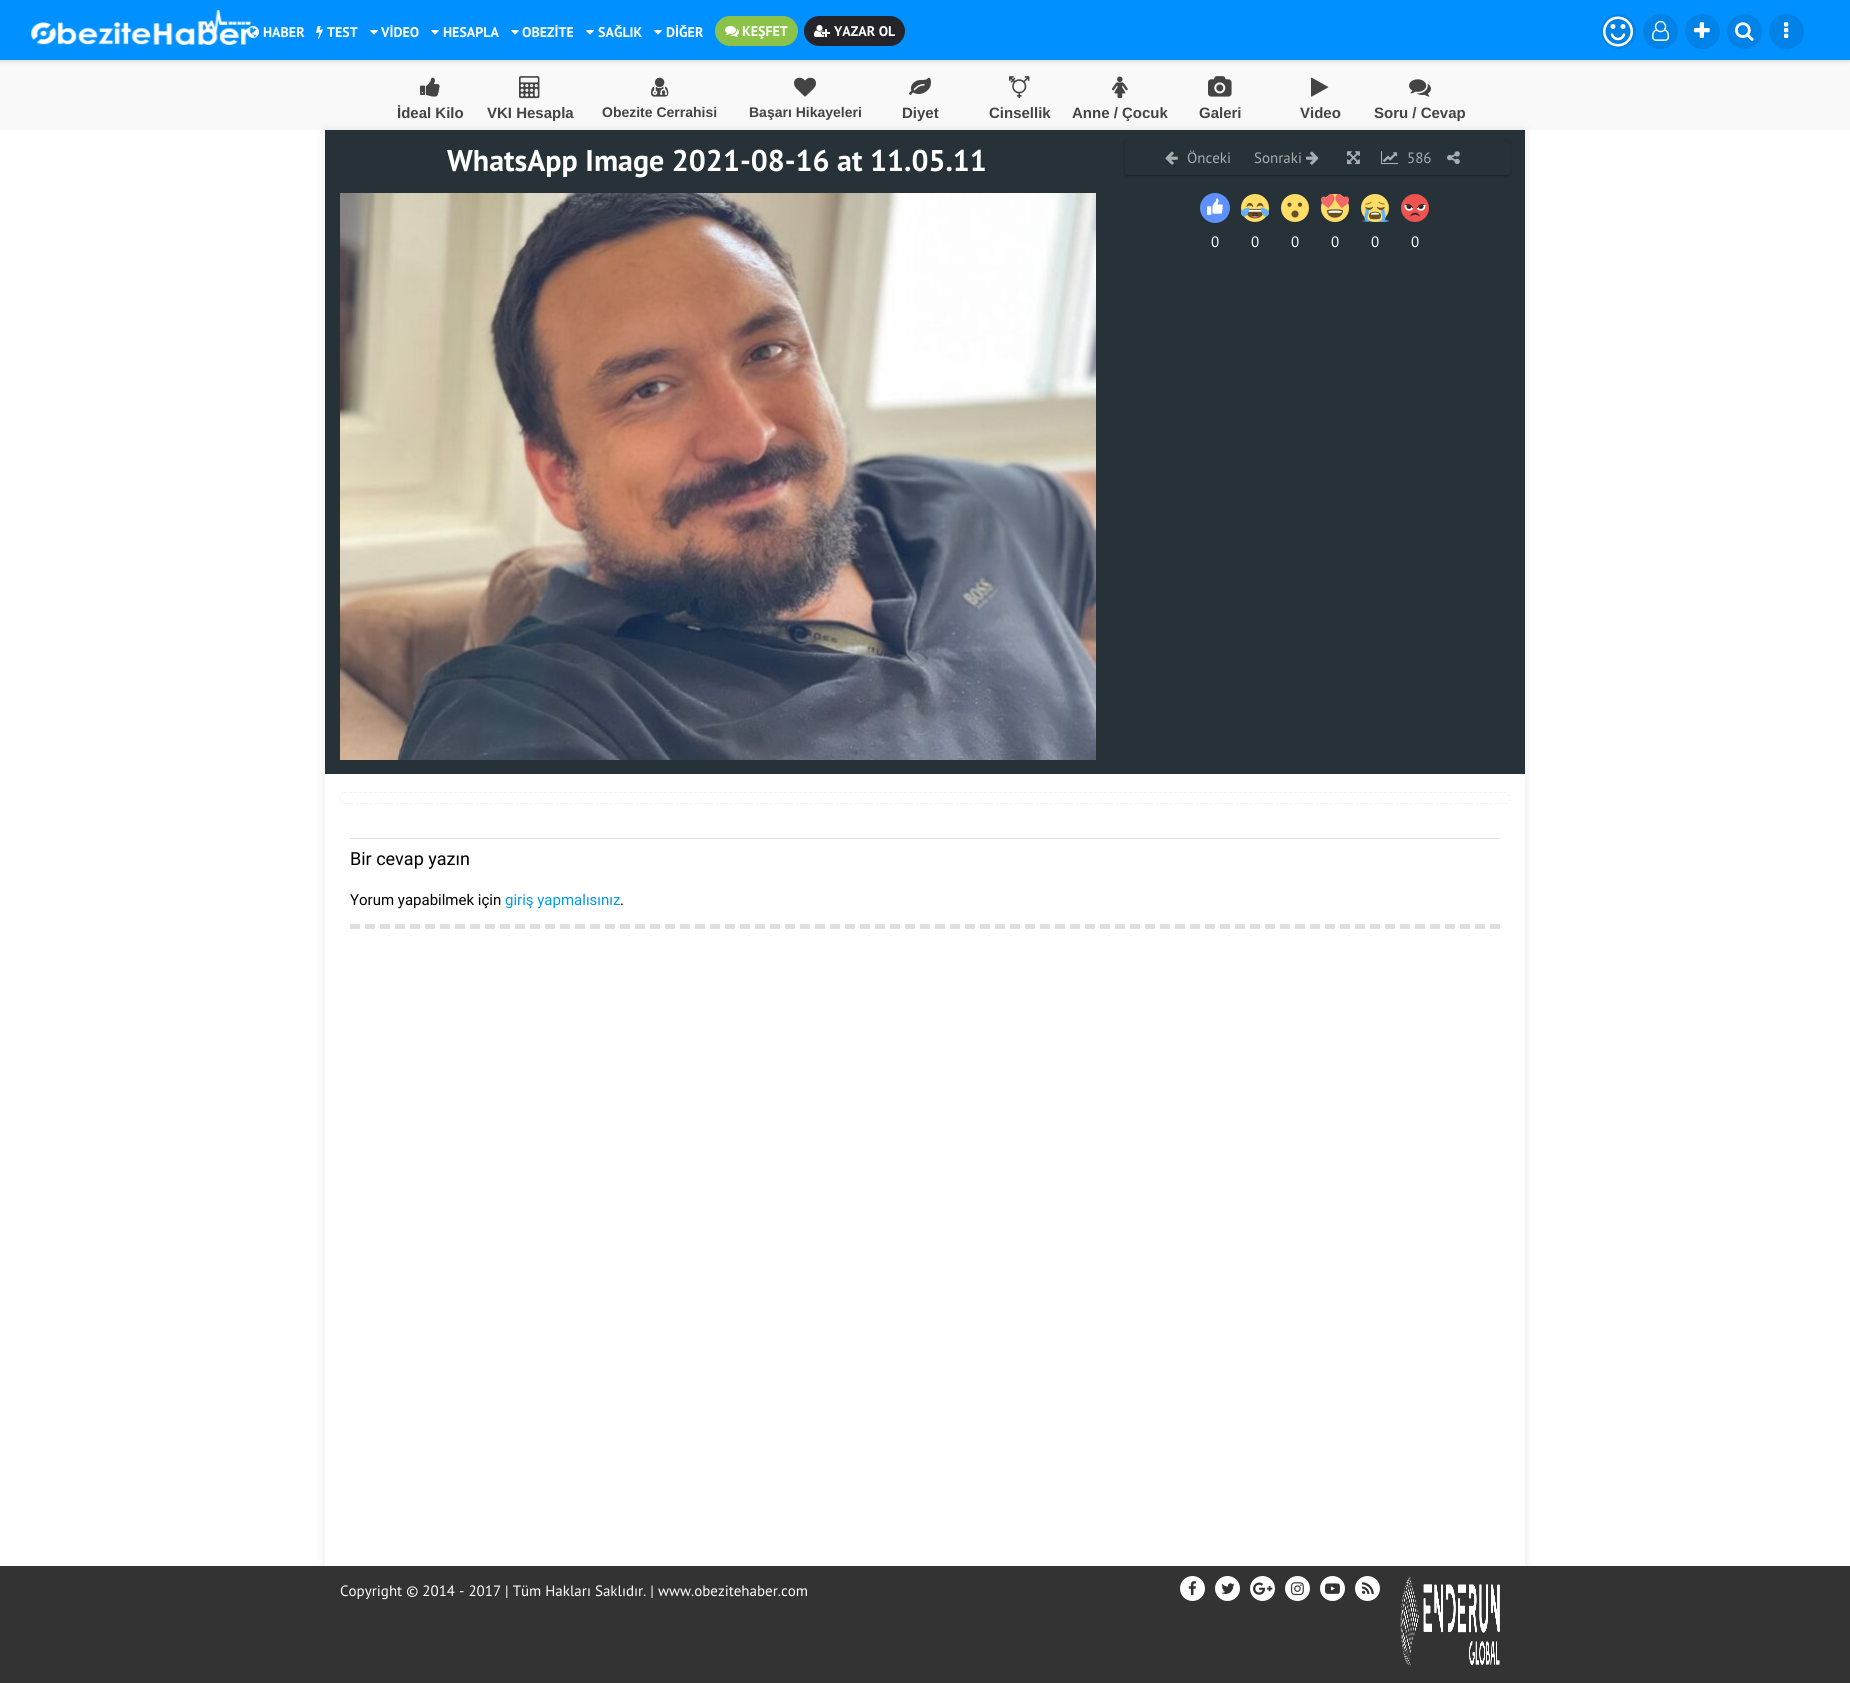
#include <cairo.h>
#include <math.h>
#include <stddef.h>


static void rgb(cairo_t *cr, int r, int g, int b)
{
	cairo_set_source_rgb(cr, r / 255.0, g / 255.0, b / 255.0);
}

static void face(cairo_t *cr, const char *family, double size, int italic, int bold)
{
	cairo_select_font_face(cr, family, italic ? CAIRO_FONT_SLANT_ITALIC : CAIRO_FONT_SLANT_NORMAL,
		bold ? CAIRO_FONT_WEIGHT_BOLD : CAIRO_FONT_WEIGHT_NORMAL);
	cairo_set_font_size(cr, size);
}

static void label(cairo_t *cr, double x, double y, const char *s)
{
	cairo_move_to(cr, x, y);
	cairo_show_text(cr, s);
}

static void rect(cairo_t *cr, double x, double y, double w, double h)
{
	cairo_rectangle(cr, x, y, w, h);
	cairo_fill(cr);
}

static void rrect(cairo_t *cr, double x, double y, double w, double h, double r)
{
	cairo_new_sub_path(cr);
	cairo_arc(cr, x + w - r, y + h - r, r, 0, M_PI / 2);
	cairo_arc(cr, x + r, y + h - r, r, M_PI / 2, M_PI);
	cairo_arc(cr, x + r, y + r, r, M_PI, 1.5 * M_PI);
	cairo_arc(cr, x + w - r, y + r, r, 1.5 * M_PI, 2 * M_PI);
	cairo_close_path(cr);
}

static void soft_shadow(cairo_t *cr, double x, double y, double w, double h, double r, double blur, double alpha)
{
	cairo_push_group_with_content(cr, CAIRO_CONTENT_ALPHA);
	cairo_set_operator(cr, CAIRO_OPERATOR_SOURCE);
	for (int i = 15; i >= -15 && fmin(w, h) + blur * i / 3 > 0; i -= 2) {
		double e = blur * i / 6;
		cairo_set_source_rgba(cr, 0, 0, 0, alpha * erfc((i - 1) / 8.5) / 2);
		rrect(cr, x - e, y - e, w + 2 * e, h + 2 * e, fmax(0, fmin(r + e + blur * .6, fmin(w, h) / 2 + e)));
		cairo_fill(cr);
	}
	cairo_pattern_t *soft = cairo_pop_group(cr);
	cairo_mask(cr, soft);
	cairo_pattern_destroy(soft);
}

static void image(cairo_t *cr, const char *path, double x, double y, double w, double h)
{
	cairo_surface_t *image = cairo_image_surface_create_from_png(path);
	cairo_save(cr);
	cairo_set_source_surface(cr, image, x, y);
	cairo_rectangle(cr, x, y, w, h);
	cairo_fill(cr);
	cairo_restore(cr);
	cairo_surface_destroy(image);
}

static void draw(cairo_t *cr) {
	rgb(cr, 255, 255, 255);
	cairo_paint(cr);
	rgb(cr, 249, 249, 249);
	rect(cr, 0, 60, 1850, 70);
	rgb(cr, 0, 0, 0);
	soft_shadow(cr, 0, 2, 1850, 60, 0, 1.5, 0.1);
	rgb(cr, 0, 144, 255);
	rect(cr, 0, 0, 1850, 60);
	image(cr, "image0.png", 31, 10, 221, 35);
	image(cr, "image1.png", 247, 26, 12, 12);
	face(cr, "PT Sans", 14, 0, 1);
	rgb(cr, 255, 255, 255);
	label(cr, 263, 37, "HABER");
	image(cr, "image2.png", 316, 26, 7, 13);
	label(cr, 327, 37, "TEST");
	image(cr, "image3.png", 370, 30, 8, 5);
	label(cr, 381, 37, "VİDEO");
	image(cr, "image3.png", 431, 30, 8, 5);
	label(cr, 443, 37, "HESAPLA");
	image(cr, "image3.png", 511, 30, 8, 5);
	label(cr, 522, 37, "OBEZİTE");
	image(cr, "image3.png", 586, 30, 8, 5);
	label(cr, 598, 37, "SAĞLIK");
	image(cr, "image3.png", 654, 30, 8, 5);
	label(cr, 666, 37, "DİĞER");
	rgb(cr, 139, 195, 74);
	rrect(cr, 715, 16, 83, 30, 15);
	cairo_fill(cr);
	image(cr, "image4.png", 725, 26, 14, 11);
	rgb(cr, 255, 255, 255);
	label(cr, 742, 36, "KEŞFET");
	rgb(cr, 37, 36, 42);
	rrect(cr, 804, 16, 101, 30, 15);
	cairo_fill(cr);
	image(cr, "image5.png", 814, 25, 16, 12);
	rgb(cr, 255, 255, 255);
	label(cr, 834, 36, "YAZAR OL");
	rgb(cr, 0, 130, 230);
	cairo_new_path(cr);
	cairo_arc(cr, 1618.5, 31.5, 17.5, 0, 2 * M_PI);
	cairo_fill(cr);
	image(cr, "image6.png", 1603, 16, 30, 31);
	cairo_arc(cr, 1660.5, 31.5, 17.5, 0, 2 * M_PI);
	cairo_fill(cr);
	image(cr, "image7.png", 1652, 20, 18, 21);
	cairo_arc(cr, 1702.5, 31.5, 17.5, 0, 2 * M_PI);
	cairo_fill(cr);
	image(cr, "image8.png", 1694, 22, 16, 16);
	cairo_arc(cr, 1744.5, 31.5, 17.5, 0, 2 * M_PI);
	cairo_fill(cr);
	image(cr, "image9.png", 1735, 22, 19, 19);
	cairo_arc(cr, 1786.5, 31.5, 17.5, 0, 2 * M_PI);
	cairo_fill(cr);
	image(cr, "image10.png", 1784, 22, 5, 16);
	image(cr, "image11.png", 420, 77, 20, 20);
	face(cr, "Liberation Sans", 15, 0, 1);
	rgb(cr, 68, 68, 68);
	label(cr, 397, 118, "İdeal Kilo");
	image(cr, "image12.png", 519, 76, 21, 23);
	label(cr, 487, 118, "VKI Hesapla");
	image(cr, "image13.png", 651, 77, 18, 20);
	face(cr, "Liberation Sans", 14, 0, 1);
	label(cr, 602, 117, "Obezite Cerrahisi");
	image(cr, "image14.png", 794, 77, 22, 20);
	label(cr, 749, 117, "Başarı Hikayeleri");
	image(cr, "image15.png", 909, 77, 22, 18);
	face(cr, "Liberation Sans", 15, 0, 1);
	label(cr, 902, 118, "Diyet");
	image(cr, "image16.png", 1009, 76, 21, 23);
	label(cr, 989, 118, "Cinsellik");
	image(cr, "image17.png", 1112, 76, 16, 23);
	label(cr, 1072, 118, "Anne / Çocuk");
	image(cr, "image18.png", 1208, 76, 24, 21);
	label(cr, 1199, 118, "Galeri");
	image(cr, "image19.png", 1311, 77, 18, 20);
	label(cr, 1300, 118, "Video");
	image(cr, "image20.png", 1409, 79, 22, 18);
	label(cr, 1374, 118, "Soru / Cevap");
	cairo_save(cr);
	cairo_set_fill_rule(cr, CAIRO_FILL_RULE_EVEN_ODD);
	cairo_new_path(cr);
	cairo_move_to(cr, 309, 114);
	cairo_line_to(cr, 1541, 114);
	cairo_line_to(cr, 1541, 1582);
	cairo_line_to(cr, 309, 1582);
	cairo_close_path(cr);
	cairo_move_to(cr, 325, 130);
	cairo_line_to(cr, 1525, 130);
	cairo_line_to(cr, 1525, 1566);
	cairo_line_to(cr, 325, 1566);
	cairo_close_path(cr);
	cairo_clip(cr);
	rgb(cr, 0, 0, 0);
	soft_shadow(cr, 325, 130, 1200, 1436, 0, 5, 0.09);
	cairo_restore(cr);
	rgb(cr, 38, 50, 56);
	rect(cr, 325, 130, 1200, 644);
	face(cr, "PT Sans", 30, 0, 1);
	rgb(cr, 255, 255, 255);
	label(cr, 447, 171, "WhatsApp Image 2021-08-16 at 11.05.11");
	rgb(cr, 0, 0, 0);
	soft_shadow(cr, 1125, 141, 385, 35, 3, 1.5, 0.38);
	rgb(cr, 38, 50, 56);
	rrect(cr, 1125, 140, 385, 35, 3);
	cairo_fill(cr);
	image(cr, "image21.png", 1165, 151, 13, 14);
	face(cr, "PT Sans", 15, 0, 0);
	rgb(cr, 168, 173, 175);
	label(cr, 1187, 163, "Önceki");
	label(cr, 1254, 163, "Sonraki");
	image(cr, "image22.png", 1306, 151, 13, 14);
	image(cr, "image23.png", 1347, 151, 13, 14);
	image(cr, "image24.png", 1381, 151, 18, 14);
	label(cr, 1407, 163, "586");
	image(cr, "image25.png", 1447, 151, 13, 13);
	image(cr, "image26.png", 1200, 193, 30, 30);
	rgb(cr, 255, 255, 255);
	label(cr, 1211, 247, "0");
	image(cr, "image27.png", 1241, 194, 28, 28);
	label(cr, 1251, 247, "0");
	rgb(cr, 255, 221, 103);
	cairo_new_path(cr);
	cairo_arc(cr, 1295, 208, 14, 0, 2 * M_PI);
	cairo_fill(cr);
	rgb(cr, 102, 78, 39);
	cairo_arc(cr, 1289.5, 204.7, 2.1, 0, 2 * M_PI);
	cairo_fill(cr);
	cairo_arc(cr, 1300, 204.7, 2.1, 0, 2 * M_PI);
	cairo_fill(cr);
	cairo_arc(cr, 1295, 214, 3.5, 0, 2 * M_PI);
	cairo_fill(cr);
	rgb(cr, 255, 255, 255);
	label(cr, 1291, 247, "0");
	image(cr, "image28.png", 1320, 193, 29, 29);
	label(cr, 1331, 247, "0");
	image(cr, "image29.png", 1361, 194, 28, 28);
	label(cr, 1371, 247, "0");
	image(cr, "image30.png", 1401, 194, 28, 28);
	label(cr, 1411, 247, "0");
	image(cr, "image31.png", 340, 193, 756, 567);
	cairo_new_path(cr);
	cairo_move_to(cr, 344, 792.5);
	cairo_line_to(cr, 1506.5, 792.5);
	cairo_curve_to(cr, 1511, 793.5, 1511, 802.5, 1506.5, 803.5);
	cairo_line_to(cr, 344, 803.5);
	cairo_curve_to(cr, 339, 803.5, 339, 792.5, 344, 792.5);
	cairo_close_path(cr);
	rgb(cr, 241, 241, 241);
	cairo_set_line_width(cr, 1);
	cairo_set_dash(cr, (double[]){3, 2}, 2, 0);
	cairo_stroke(cr);
	rgb(cr, 223, 223, 223);
	rect(cr, 350, 838, 1150, 1);
	cairo_new_path(cr);
	cairo_move_to(cr, 350, 926.5);
	cairo_line_to(cr, 1500, 926.5);
	cairo_set_line_width(cr, 5);
	cairo_set_dash(cr, (double[]){10, 5}, 2, 0);
	cairo_stroke(cr);
	face(cr, "Roboto", 18, 0, 0);
	rgb(cr, 0, 0, 0);
	label(cr, 350, 865, "Bir cevap yazın");
	face(cr, "Roboto", 15, 0, 0);
	label(cr, 350, 905, "Yorum yapabilmek için");
	rgb(cr, 3, 155, 229);
	label(cr, 505, 905, "giriş yapmalısınız");
	rgb(cr, 0, 0, 0);
	label(cr, 620, 905, ".");
	rgb(cr, 51, 51, 51);
	rect(cr, 0, 1566, 1850, 117);
	face(cr, "PT Sans", 15, 0, 0);
	rgb(cr, 255, 255, 255);
	label(cr, 340, 1596, "Copyright © 2014 - 2017 | Tüm Hakları Saklıdır. | www.obezitehaber.com");
	cairo_new_path(cr);
	cairo_arc(cr, 1192.5, 1588.5, 12.5, 0, 2 * M_PI);
	cairo_fill(cr);
	image(cr, "image32.png", 1188, 1581, 9, 15);
	cairo_arc(cr, 1227.5, 1588.5, 12.5, 0, 2 * M_PI);
	cairo_fill(cr);
	image(cr, "image33.png", 1221, 1583, 14, 11);
	cairo_arc(cr, 1262.5, 1588.5, 12.5, 0, 2 * M_PI);
	cairo_fill(cr);
	image(cr, "image34.png", 1253, 1582, 20, 13);
	cairo_arc(cr, 1297.5, 1588.5, 12.5, 0, 2 * M_PI);
	cairo_fill(cr);
	image(cr, "image35.png", 1291, 1582, 13, 14);
	cairo_arc(cr, 1332.5, 1588.5, 12.5, 0, 2 * M_PI);
	cairo_fill(cr);
	image(cr, "image36.png", 1325, 1583, 15, 11);
	cairo_arc(cr, 1367.5, 1588.5, 12.5, 0, 2 * M_PI);
	cairo_fill(cr);
	image(cr, "image37.png", 1362, 1582, 12, 12);
	image(cr, "image38.png", 1400, 1577, 100, 88);
}

int main(void) {
	cairo_surface_t *surface = cairo_image_surface_create(CAIRO_FORMAT_RGB24, 1850, 1683);
	cairo_t *cr = cairo_create(surface);
	cairo_font_options_t *options = cairo_font_options_create();
	cairo_font_options_set_hint_metrics(options, CAIRO_HINT_METRICS_OFF);
	cairo_font_options_set_hint_style(options, CAIRO_HINT_STYLE_NONE);
	cairo_set_font_options(cr, options);
	cairo_set_miter_limit(cr, 4);
	draw(cr);
	cairo_surface_write_to_png(surface, "render.png");
	cairo_font_options_destroy(options);
	cairo_destroy(cr);
	cairo_surface_destroy(surface);
	return 0;
}
